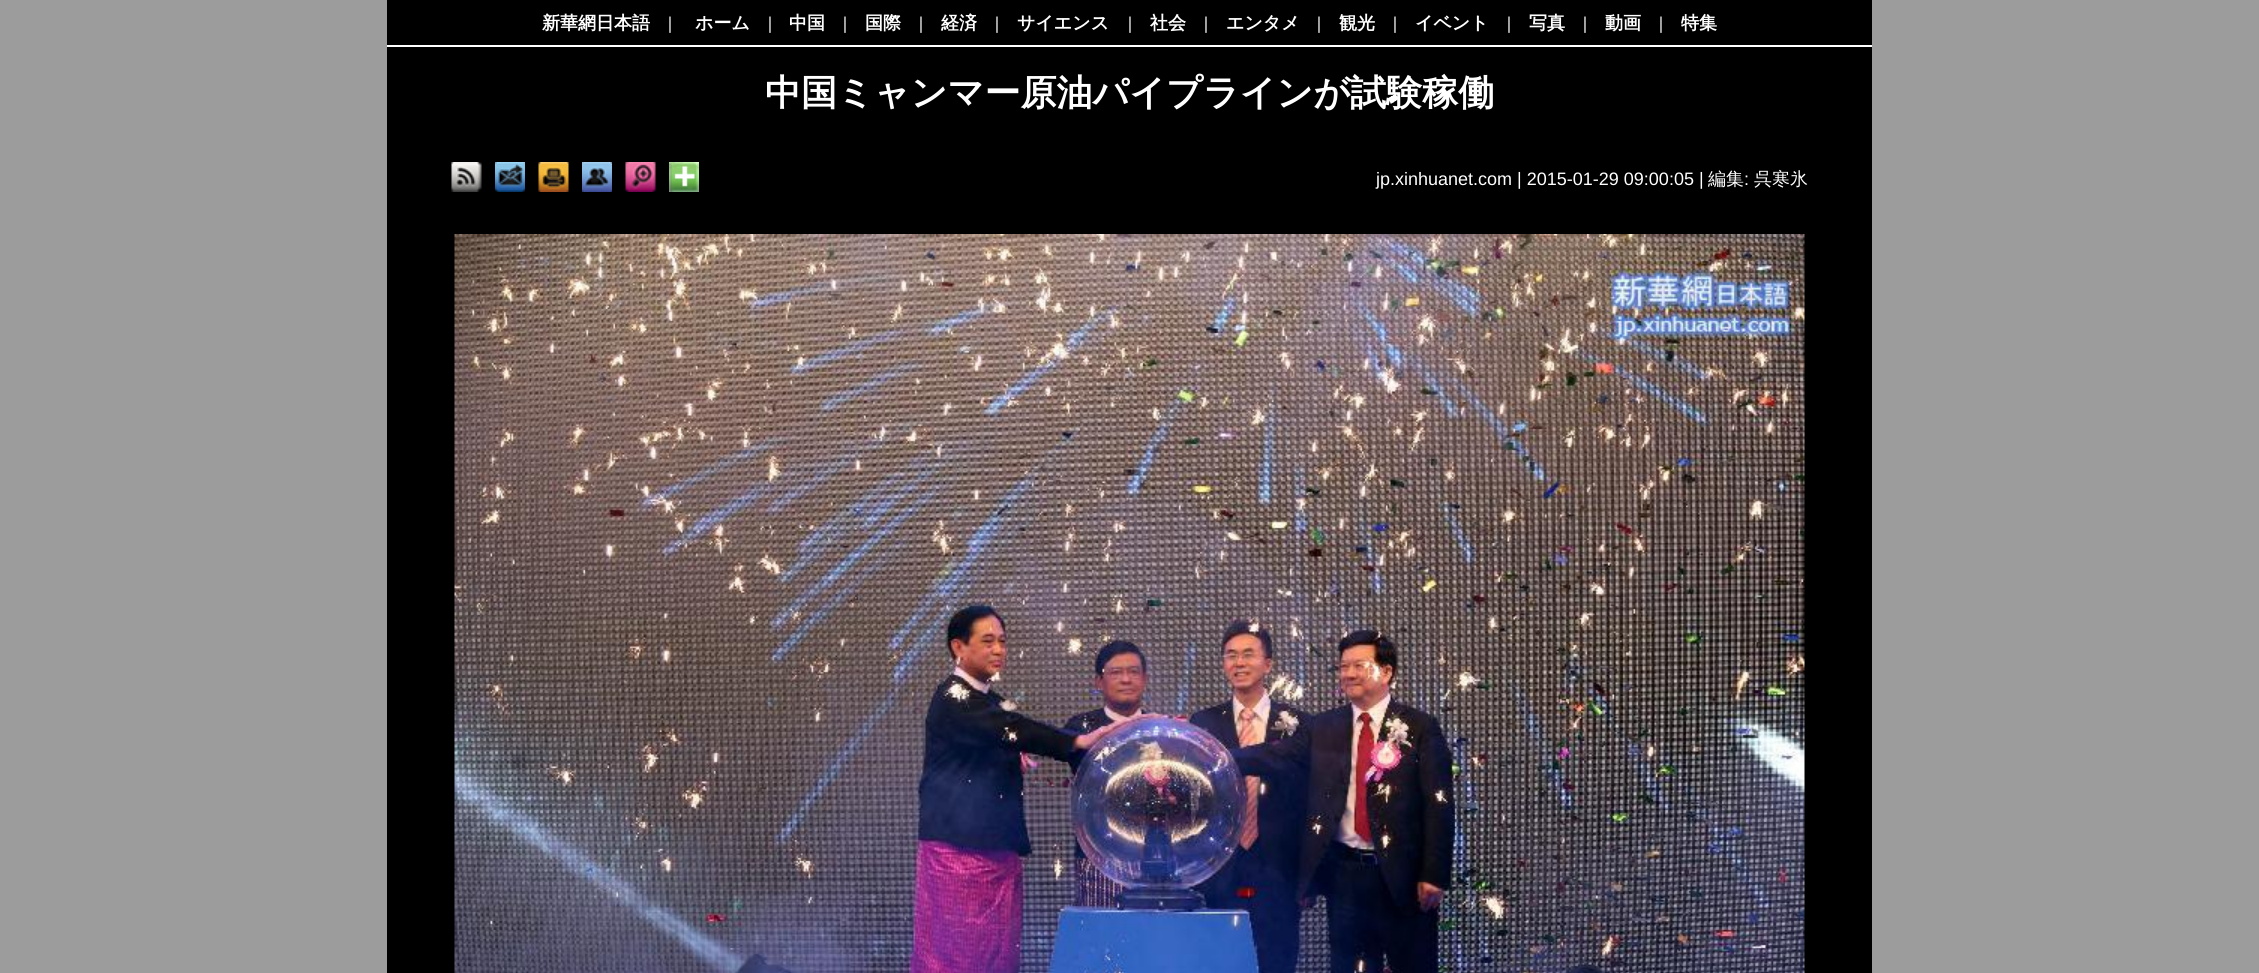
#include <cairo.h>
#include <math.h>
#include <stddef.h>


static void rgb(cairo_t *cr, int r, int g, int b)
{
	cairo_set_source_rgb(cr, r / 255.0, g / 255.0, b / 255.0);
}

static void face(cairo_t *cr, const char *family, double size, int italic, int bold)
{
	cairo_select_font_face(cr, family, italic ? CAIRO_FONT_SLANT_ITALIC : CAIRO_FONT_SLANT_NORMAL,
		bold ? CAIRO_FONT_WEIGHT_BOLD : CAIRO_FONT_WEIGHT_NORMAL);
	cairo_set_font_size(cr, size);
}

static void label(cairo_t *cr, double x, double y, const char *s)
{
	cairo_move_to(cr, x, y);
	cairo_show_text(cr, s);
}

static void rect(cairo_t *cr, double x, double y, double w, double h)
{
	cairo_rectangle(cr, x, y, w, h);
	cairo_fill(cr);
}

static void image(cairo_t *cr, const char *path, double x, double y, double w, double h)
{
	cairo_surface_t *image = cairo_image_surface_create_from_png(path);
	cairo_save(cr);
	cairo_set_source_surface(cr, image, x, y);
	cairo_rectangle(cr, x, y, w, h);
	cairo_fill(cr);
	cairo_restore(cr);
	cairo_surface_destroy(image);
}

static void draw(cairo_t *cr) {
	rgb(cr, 156, 156, 156);
	cairo_paint(cr);
	rgb(cr, 0, 0, 0);
	rect(cr, 387, 0, 1485, 45);
	face(cr, "WenQuanYi Zen Hei", 18, 0, 1);
	rgb(cr, 255, 255, 255);
	label(cr, 542, 29, "新華網日本語");
	face(cr, "Liberation Serif", 18, 0, 1);
	label(cr, 668, 29, "|");
	face(cr, "WenQuanYi Zen Hei", 18, 0, 1);
	label(cr, 695, 29, "ホーム");
	face(cr, "Liberation Serif", 18, 0, 1);
	label(cr, 768, 29, "|");
	face(cr, "WenQuanYi Zen Hei", 18, 0, 1);
	label(cr, 789, 29, "中国");
	face(cr, "Liberation Serif", 18, 0, 1);
	label(cr, 843, 29, "|");
	face(cr, "WenQuanYi Zen Hei", 18, 0, 1);
	label(cr, 865, 29, "国際");
	face(cr, "Liberation Serif", 18, 0, 1);
	label(cr, 919, 29, "|");
	face(cr, "WenQuanYi Zen Hei", 18, 0, 1);
	label(cr, 941, 29, "経済");
	face(cr, "Liberation Serif", 18, 0, 1);
	label(cr, 995, 29, "|");
	face(cr, "WenQuanYi Zen Hei", 18, 0, 1);
	label(cr, 1017, 29, "サイエンス");
	face(cr, "Liberation Serif", 18, 0, 1);
	label(cr, 1128, 29, "|");
	face(cr, "WenQuanYi Zen Hei", 18, 0, 1);
	label(cr, 1150, 29, "社会");
	face(cr, "Liberation Serif", 18, 0, 1);
	label(cr, 1204, 29, "|");
	face(cr, "WenQuanYi Zen Hei", 18, 0, 1);
	label(cr, 1226, 29, "エンタメ");
	face(cr, "Liberation Serif", 18, 0, 1);
	label(cr, 1317, 29, "|");
	face(cr, "WenQuanYi Zen Hei", 18, 0, 1);
	label(cr, 1339, 29, "観光");
	face(cr, "Liberation Serif", 18, 0, 1);
	label(cr, 1393, 29, "|");
	face(cr, "WenQuanYi Zen Hei", 18, 0, 1);
	label(cr, 1415, 29, "イベント");
	face(cr, "Liberation Serif", 18, 0, 1);
	label(cr, 1507, 29, "|");
	face(cr, "WenQuanYi Zen Hei", 18, 0, 1);
	label(cr, 1529, 29, "写真");
	face(cr, "Liberation Serif", 18, 0, 1);
	label(cr, 1583, 29, "|");
	face(cr, "WenQuanYi Zen Hei", 18, 0, 1);
	label(cr, 1605, 29, "動画");
	face(cr, "Liberation Serif", 18, 0, 1);
	label(cr, 1659, 29, "|");
	face(cr, "WenQuanYi Zen Hei", 18, 0, 1);
	label(cr, 1681, 29, "特集");
	rect(cr, 387, 45, 1485, 2);
	rgb(cr, 0, 0, 0);
	rect(cr, 387, 47, 1485, 926);
	face(cr, "WenQuanYi Zen Hei", 36, 0, 1);
	rgb(cr, 255, 255, 255);
	label(cr, 765, 105, "中国ミャンマー原油パイプラインが試験稼働");
	image(cr, "image0.png", 451, 162, 31, 30);
	image(cr, "image1.png", 495, 162, 30, 30);
	image(cr, "image2.png", 538, 162, 31, 30);
	image(cr, "image3.png", 582, 162, 30, 30);
	image(cr, "image4.png", 625, 162, 31, 30);
	image(cr, "image5.png", 669, 162, 30, 30);
	face(cr, "Liberation Sans", 18, 0, 0);
	label(cr, 1376, 185, "jp.xinhuanet.com | 2015-01-29 09:00:05 |");
	face(cr, "WenQuanYi Zen Hei Medium", 18, 0, 0);
	label(cr, 1708, 185, "編集");
	face(cr, "Liberation Sans", 18, 0, 0);
	label(cr, 1744, 185, ":");
	face(cr, "WenQuanYi Zen Hei Medium", 18, 0, 0);
	label(cr, 1754, 185, "呉寒氷");
	image(cr, "image6.png", 454, 234, 1351, 739);
}

int main(void) {
	cairo_surface_t *surface = cairo_image_surface_create(CAIRO_FORMAT_RGB24, 2259, 973);
	cairo_t *cr = cairo_create(surface);
	cairo_font_options_t *options = cairo_font_options_create();
	cairo_font_options_set_hint_metrics(options, CAIRO_HINT_METRICS_OFF);
	cairo_font_options_set_hint_style(options, CAIRO_HINT_STYLE_NONE);
	cairo_set_font_options(cr, options);
	cairo_set_miter_limit(cr, 4);
	draw(cr);
	cairo_surface_write_to_png(surface, "render.png");
	cairo_font_options_destroy(options);
	cairo_destroy(cr);
	cairo_surface_destroy(surface);
	return 0;
}
